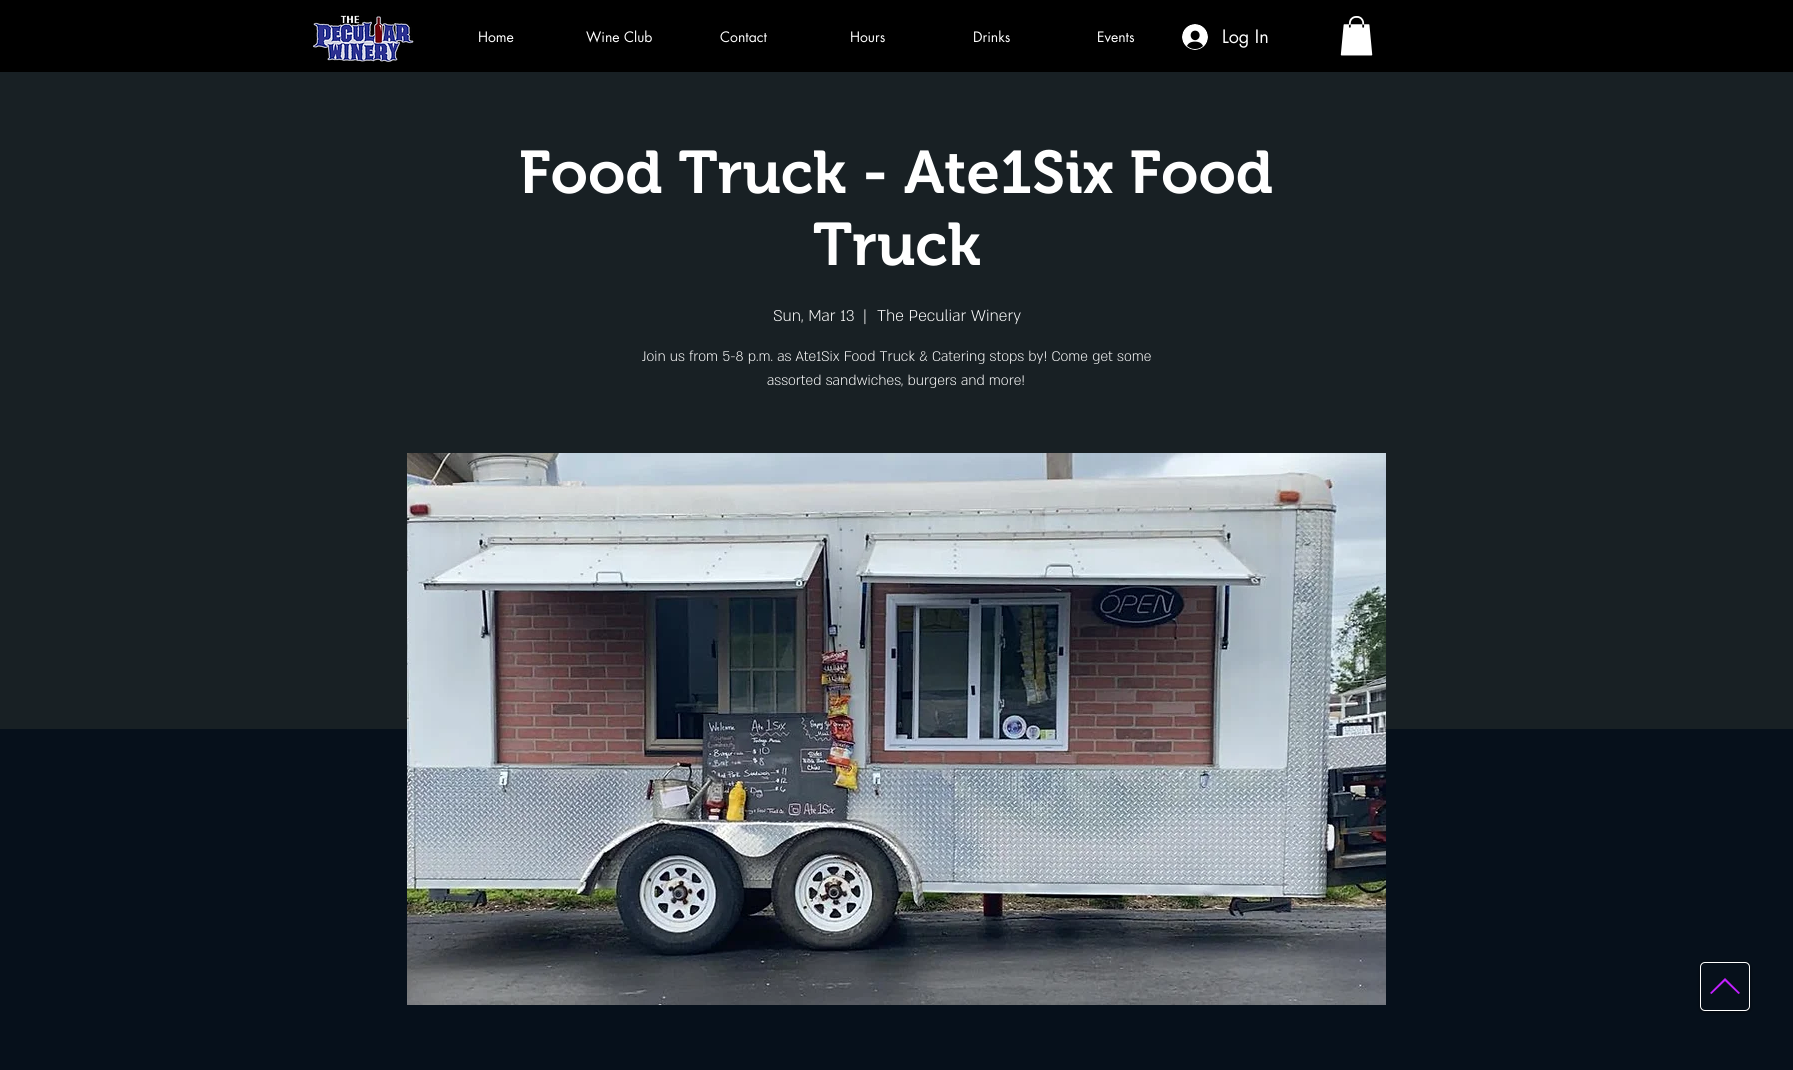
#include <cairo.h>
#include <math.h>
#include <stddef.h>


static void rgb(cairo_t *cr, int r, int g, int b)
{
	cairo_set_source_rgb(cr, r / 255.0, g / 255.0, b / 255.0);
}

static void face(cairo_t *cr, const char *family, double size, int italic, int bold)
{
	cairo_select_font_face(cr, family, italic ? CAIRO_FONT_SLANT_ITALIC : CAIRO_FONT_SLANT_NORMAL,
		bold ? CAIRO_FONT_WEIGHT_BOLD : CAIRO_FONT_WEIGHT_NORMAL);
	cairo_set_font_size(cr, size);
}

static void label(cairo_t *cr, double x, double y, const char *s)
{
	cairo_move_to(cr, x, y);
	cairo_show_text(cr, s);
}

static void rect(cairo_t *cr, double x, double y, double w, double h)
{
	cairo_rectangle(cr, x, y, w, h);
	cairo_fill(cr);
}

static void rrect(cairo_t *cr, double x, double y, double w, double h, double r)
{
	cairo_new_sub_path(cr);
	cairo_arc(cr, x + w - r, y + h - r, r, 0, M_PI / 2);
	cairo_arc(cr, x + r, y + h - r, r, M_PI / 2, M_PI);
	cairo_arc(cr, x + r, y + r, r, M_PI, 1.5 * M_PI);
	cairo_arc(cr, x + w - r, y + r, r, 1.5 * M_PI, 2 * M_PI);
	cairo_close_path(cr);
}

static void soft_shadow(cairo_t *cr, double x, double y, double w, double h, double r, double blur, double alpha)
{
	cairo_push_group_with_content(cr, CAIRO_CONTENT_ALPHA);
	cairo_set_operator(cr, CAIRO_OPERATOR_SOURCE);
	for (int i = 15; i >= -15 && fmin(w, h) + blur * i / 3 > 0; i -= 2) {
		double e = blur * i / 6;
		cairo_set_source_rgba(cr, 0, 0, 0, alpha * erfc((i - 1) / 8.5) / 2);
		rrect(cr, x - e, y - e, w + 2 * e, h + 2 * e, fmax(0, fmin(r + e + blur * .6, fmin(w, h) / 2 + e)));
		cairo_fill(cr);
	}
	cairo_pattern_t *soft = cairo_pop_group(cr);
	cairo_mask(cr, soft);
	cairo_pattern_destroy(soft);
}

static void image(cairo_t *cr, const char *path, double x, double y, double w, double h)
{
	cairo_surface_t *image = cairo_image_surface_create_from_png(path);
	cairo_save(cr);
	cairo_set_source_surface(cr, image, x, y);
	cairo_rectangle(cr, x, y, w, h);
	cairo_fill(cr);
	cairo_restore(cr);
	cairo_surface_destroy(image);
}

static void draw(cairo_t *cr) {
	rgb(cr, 6, 16, 27);
	cairo_paint(cr);
	rgb(cr, 0, 0, 0);
	rect(cr, 0, 0, 1793, 72);
	image(cr, "image0.png", 313, 15, 101, 47);
	face(cr, "futura", 14, 0, 0);
	rgb(cr, 255, 255, 255);
	label(cr, 478, 42, "Home");
	label(cr, 586, 42, "Wine Club");
	label(cr, 720, 42, "Contact");
	label(cr, 850, 42, "Hours");
	label(cr, 973, 42, "Drinks");
	label(cr, 1097, 42, "Events");
	image(cr, "image1.png", 1182, 24, 26, 26);
	face(cr, "futura", 18, 0, 0);
	label(cr, 1222, 43, "Log In");
	image(cr, "image2.png", 1340, 16, 33, 40);
	rgb(cr, 24, 32, 36);
	rect(cr, 0, 72, 1793, 657);
	face(cr, "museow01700 SemiBold", 60, 0, 0);
	rgb(cr, 255, 255, 255);
	label(cr, 519, 193, "Food Truck - Ate1Six Food");
	label(cr, 813, 265, "Truck");
	face(cr, "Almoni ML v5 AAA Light", 18, 0, 0);
	label(cr, 773, 321, "Sun, Mar 13");
	label(cr, 863, 321, "|");
	label(cr, 877, 321, "The Peculiar Winery");
	face(cr, "Almoni ML v5 AAA Light", 16, 0, 0);
	label(cr, 642, 361, "Join us from 5-8 p.m. as Ate1Six Food Truck & Catering stops by! Come get some");
	label(cr, 767, 385, "assorted sandwiches, burgers and more!");
	image(cr, "image3.png", 407, 453, 979, 552);
	rgb(cr, 0, 0, 0);
	soft_shadow(cr, 1700, 963, 50, 49, 5, 2, 0.6);
	rgb(cr, 6, 16, 27);
	rrect(cr, 1700.5, 962.5, 49, 48, 4.5);
	cairo_fill_preserve(cr);
	rgb(cr, 255, 255, 255);
	cairo_set_line_width(cr, 1);
	cairo_stroke(cr);
	rgb(cr, 195, 32, 255);
	cairo_new_path(cr);
	cairo_move_to(cr, 1710, 993);
	cairo_line_to(cr, 1711.5, 994);
	cairo_line_to(cr, 1725, 981);
	cairo_line_to(cr, 1738.5, 994);
	cairo_line_to(cr, 1740, 993);
	cairo_line_to(cr, 1725, 978);
	cairo_close_path(cr);
	cairo_fill(cr);
}

int main(void) {
	cairo_surface_t *surface = cairo_image_surface_create(CAIRO_FORMAT_RGB24, 1793, 1070);
	cairo_t *cr = cairo_create(surface);
	cairo_font_options_t *options = cairo_font_options_create();
	cairo_font_options_set_hint_metrics(options, CAIRO_HINT_METRICS_OFF);
	cairo_font_options_set_hint_style(options, CAIRO_HINT_STYLE_NONE);
	cairo_set_font_options(cr, options);
	cairo_set_miter_limit(cr, 4);
	draw(cr);
	cairo_surface_write_to_png(surface, "render.png");
	cairo_font_options_destroy(options);
	cairo_destroy(cr);
	cairo_surface_destroy(surface);
	return 0;
}
